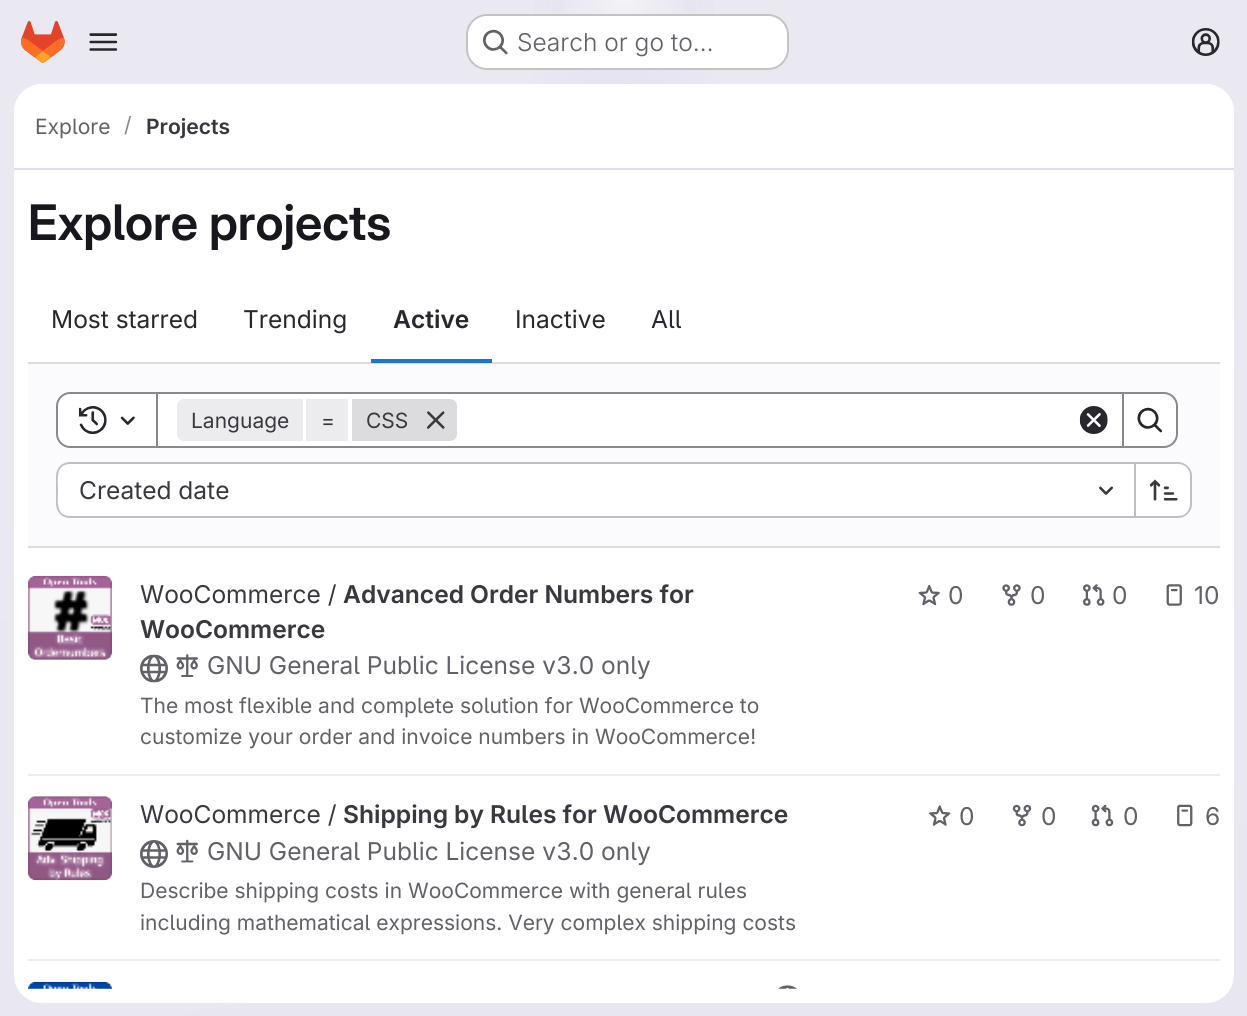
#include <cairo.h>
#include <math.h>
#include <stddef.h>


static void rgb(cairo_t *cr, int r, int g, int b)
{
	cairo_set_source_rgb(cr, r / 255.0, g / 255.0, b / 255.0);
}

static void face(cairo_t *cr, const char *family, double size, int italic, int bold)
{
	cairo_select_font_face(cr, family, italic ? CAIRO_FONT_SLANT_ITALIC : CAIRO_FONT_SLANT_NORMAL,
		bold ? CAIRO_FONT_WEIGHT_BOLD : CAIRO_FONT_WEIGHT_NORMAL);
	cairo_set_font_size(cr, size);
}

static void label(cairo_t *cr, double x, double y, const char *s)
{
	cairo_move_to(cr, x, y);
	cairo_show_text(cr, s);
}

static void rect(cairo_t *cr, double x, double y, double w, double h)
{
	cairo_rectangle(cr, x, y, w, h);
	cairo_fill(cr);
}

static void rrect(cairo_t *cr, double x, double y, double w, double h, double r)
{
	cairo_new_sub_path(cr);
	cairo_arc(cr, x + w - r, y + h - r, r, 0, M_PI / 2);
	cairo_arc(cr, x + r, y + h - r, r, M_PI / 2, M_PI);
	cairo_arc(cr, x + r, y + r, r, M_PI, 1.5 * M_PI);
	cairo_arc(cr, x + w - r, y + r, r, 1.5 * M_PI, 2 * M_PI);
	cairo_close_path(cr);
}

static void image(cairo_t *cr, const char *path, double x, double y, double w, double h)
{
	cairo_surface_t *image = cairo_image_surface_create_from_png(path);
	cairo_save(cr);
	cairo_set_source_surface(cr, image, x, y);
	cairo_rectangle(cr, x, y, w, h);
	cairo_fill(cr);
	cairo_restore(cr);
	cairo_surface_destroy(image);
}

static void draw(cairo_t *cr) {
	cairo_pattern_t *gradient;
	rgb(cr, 255, 255, 255);
	cairo_paint(cr);
	gradient = cairo_pattern_create_linear(730, 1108, 518, -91);
	cairo_pattern_add_color_stop_rgba(gradient, 0, 0.91, 0.902, 0.941, 1);
	cairo_pattern_add_color_stop_rgba(gradient, 0.7, 0.918, 0.914, 0.949, 1);
	cairo_set_source(cr, gradient);
	cairo_pattern_destroy(gradient);
	rect(cr, 0, 0, 1247, 1016);
	gradient = cairo_pattern_create_radial(0, 0, 0, 0, 0, 1);
	cairo_pattern_set_matrix(gradient, &(cairo_matrix_t){1.0 / 624, 0, 0, 1.0 / 1017, -1.0 * 624 / 624, -1.0 * 0 / 1017});
	cairo_pattern_add_color_stop_rgba(gradient, 0, 0.894, 0.886, 0.929, 1);
	cairo_pattern_add_color_stop_rgba(gradient, 0.2, 0.894, 0.886, 0.929, 0);
	cairo_set_source(cr, gradient);
	cairo_pattern_destroy(gradient);
	rect(cr, 534, 0, 180, 84);
	gradient = cairo_pattern_create_radial(0, 0, 0, 0, 0, 1);
	cairo_pattern_set_matrix(gradient, &(cairo_matrix_t){1.0 / 624, 0, 0, 1.0 / 1017, -1.0 * 624 / 624, -1.0 * 0 / 1017});
	cairo_pattern_add_color_stop_rgba(gradient, 0, 0.894, 0.886, 0.925, 1);
	cairo_pattern_add_color_stop_rgba(gradient, 0.14, 0.894, 0.886, 0.925, 0);
	cairo_set_source(cr, gradient);
	cairo_pattern_destroy(gradient);
	rect(cr, 588, 5, 72, 55);
	gradient = cairo_pattern_create_radial(624, 0, 0, 624, 0, 1193);
	cairo_pattern_add_color_stop_rgba(gradient, 0, 1, 1, 1, 0.6);
	cairo_pattern_add_color_stop_rgba(gradient, 0.06, 1, 1, 1, 0);
	cairo_set_source(cr, gradient);
	cairo_pattern_destroy(gradient);
	rect(cr, 564, 0, 120, 14);
	image(cr, "image0.png", 21, 21, 44, 42);
	image(cr, "image1.png", 89, 33, 29, 18);
	rgb(cr, 255, 255, 255);
	rrect(cr, 466, 14, 323, 56, 21);
	cairo_fill(cr);
	rrect(cr, 467, 15, 321, 54, 20);
	cairo_set_source_rgba(cr, 0.02, 0.02, 0.024, 0.24);
	cairo_stroke(cr);
	image(cr, "image2.png", 483, 29, 25, 26);
	face(cr, "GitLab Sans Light", 24.5, 0, 0);
	rgb(cr, 98, 97, 104);
	label(cr, 517, 51, "Search or go to…");
	image(cr, "image3.png", 1191, 28, 29, 28);
	rgb(cr, 255, 255, 255);
	rrect(cr, 14, 84, 1220, 919, 28);
	cairo_fill(cr);
	cairo_new_path(cr);
	cairo_move_to(cr, 42, 84);
	cairo_line_to(cr, 1206, 84);
	cairo_curve_to(cr, 1221.5, 84, 1234, 96.5, 1234, 112);
	cairo_line_to(cr, 1234, 170);
	cairo_line_to(cr, 14, 170);
	cairo_line_to(cr, 14, 112);
	cairo_curve_to(cr, 14, 96.5, 26.5, 84, 42, 84);
	cairo_close_path(cr);
	cairo_fill(cr);
	rgb(cr, 225, 223, 236);
	rect(cr, 14, 168, 1220, 2);
	face(cr, "GitLab Sans", 21, 0, 0);
	rgb(cr, 98, 97, 104);
	label(cr, 35, 134, "Explore");
	rgb(cr, 137, 136, 141);
	label(cr, 124, 132, "/");
	face(cr, "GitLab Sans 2 SemiBold", 21, 0, 0);
	rgb(cr, 58, 56, 63);
	label(cr, 146, 134, "Projects");
	face(cr, "GitLab Sans SemiBold", 49, 0, 0);
	rgb(cr, 24, 23, 29);
	label(cr, 28, 240, "Explore projects");
	face(cr, "GitLab Sans", 24.5, 0, 0);
	rgb(cr, 40, 39, 45);
	label(cr, 51, 328, "Most starred");
	label(cr, 243, 328, "Trending");
	face(cr, "GitLab Sans 2 SemiBold", 24.5, 0, 0);
	label(cr, 393, 328, "Active");
	rgb(cr, 220, 220, 222);
	rect(cr, 28, 362, 1192, 2);
	rgb(cr, 31, 117, 203);
	rect(cr, 371, 359, 121, 4);
	face(cr, "GitLab Sans", 24.5, 0, 0);
	rgb(cr, 40, 39, 45);
	label(cr, 515, 328, "Inactive");
	label(cr, 651, 328, "All");
	rgb(cr, 251, 250, 253);
	rect(cr, 28, 364, 1192, 182);
	rgb(cr, 220, 220, 222);
	rect(cr, 28, 546, 1192, 2);
	rgb(cr, 255, 255, 255);
	cairo_rectangle(cr, 157, 393, 966, 54);
	cairo_fill_preserve(cr);
	rgb(cr, 137, 136, 141);
	cairo_stroke(cr);
	rgb(cr, 255, 255, 255);
	cairo_new_path(cr);
	cairo_move_to(cr, 70, 393);
	cairo_line_to(cr, 157, 393);
	cairo_line_to(cr, 157, 447);
	cairo_line_to(cr, 70, 447);
	cairo_curve_to(cr, 63, 447, 57, 441, 57, 434);
	cairo_line_to(cr, 57, 406);
	cairo_curve_to(cr, 57, 399, 63, 393, 70, 393);
	cairo_close_path(cr);
	cairo_fill_preserve(cr);
	rgb(cr, 137, 136, 141);
	cairo_stroke(cr);
	image(cr, "image4.png", 78, 406, 29, 28);
	image(cr, "image5.png", 120, 416, 15, 9);
	rgb(cr, 236, 236, 239);
	cairo_new_path(cr);
	cairo_move_to(cr, 184, 399);
	cairo_line_to(cr, 303, 399);
	cairo_line_to(cr, 303, 441);
	cairo_line_to(cr, 184, 441);
	cairo_curve_to(cr, 180, 441, 177, 438, 177, 434);
	cairo_line_to(cr, 177, 406);
	cairo_curve_to(cr, 177, 402, 180, 399, 184, 399);
	cairo_close_path(cr);
	cairo_fill(cr);
	face(cr, "GitLab Sans", 21, 0, 0);
	rgb(cr, 58, 56, 63);
	label(cr, 191, 428, "Language");
	rgb(cr, 236, 236, 239);
	rect(cr, 306, 399, 42, 42);
	rgb(cr, 58, 56, 63);
	label(cr, 321, 428, "=");
	rgb(cr, 220, 220, 222);
	cairo_new_path(cr);
	cairo_move_to(cr, 352, 399);
	cairo_line_to(cr, 450, 399);
	cairo_curve_to(cr, 454, 399, 457, 402, 457, 406);
	cairo_line_to(cr, 457, 434);
	cairo_curve_to(cr, 457, 438, 454, 441, 450, 441);
	cairo_line_to(cr, 352, 441);
	cairo_close_path(cr);
	cairo_fill(cr);
	rgb(cr, 58, 56, 63);
	label(cr, 366, 428, "CSS");
	image(cr, "image6.png", 427, 411, 18, 18);
	image(cr, "image7.png", 1079, 406, 29, 28);
	rgb(cr, 255, 255, 255);
	cairo_new_path(cr);
	cairo_move_to(cr, 1123, 393);
	cairo_line_to(cr, 1164, 393);
	cairo_curve_to(cr, 1171, 393, 1177, 399, 1177, 406);
	cairo_line_to(cr, 1177, 434);
	cairo_curve_to(cr, 1177, 441, 1171, 447, 1164, 447);
	cairo_line_to(cr, 1123, 447);
	cairo_close_path(cr);
	cairo_fill_preserve(cr);
	rgb(cr, 137, 136, 141);
	cairo_stroke(cr);
	image(cr, "image8.png", 1137, 407, 25, 26);
	rgb(cr, 255, 255, 255);
	cairo_new_path(cr);
	cairo_move_to(cr, 70, 464);
	cairo_line_to(cr, 1134, 464);
	cairo_line_to(cr, 1134, 516);
	cairo_line_to(cr, 70, 516);
	cairo_curve_to(cr, 63.5, 516, 58, 510.5, 58, 504);
	cairo_line_to(cr, 58, 476);
	cairo_curve_to(cr, 58, 469.5, 63.5, 464, 70, 464);
	cairo_close_path(cr);
	cairo_fill(cr);
	rgb(cr, 191, 191, 195);
	cairo_set_fill_rule(cr, CAIRO_FILL_RULE_EVEN_ODD);
	cairo_new_path(cr);
	cairo_move_to(cr, 70, 462);
	cairo_line_to(cr, 1134, 462);
	cairo_line_to(cr, 1134, 518);
	cairo_line_to(cr, 70, 518);
	cairo_curve_to(cr, 62, 518, 56, 512, 56, 504);
	cairo_line_to(cr, 56, 476);
	cairo_curve_to(cr, 56, 468, 62, 462, 70, 462);
	cairo_close_path(cr);
	cairo_move_to(cr, 70, 464);
	cairo_line_to(cr, 1134, 464);
	cairo_line_to(cr, 1134, 516);
	cairo_line_to(cr, 70, 516);
	cairo_curve_to(cr, 55, 516, 58, 500, 58, 490);
	cairo_curve_to(cr, 58, 480, 55, 464, 70, 464);
	cairo_close_path(cr);
	cairo_fill(cr);
	face(cr, "GitLab Sans", 24.5, 0, 0);
	rgb(cr, 58, 56, 63);
	label(cr, 79, 499, "Created date");
	image(cr, "image9.png", 1099, 486, 14, 9);
	rgb(cr, 255, 255, 255);
	cairo_new_path(cr);
	cairo_move_to(cr, 1136, 464);
	cairo_line_to(cr, 1178, 464);
	cairo_curve_to(cr, 1184.5, 464, 1190, 469.5, 1190, 476);
	cairo_line_to(cr, 1190, 504);
	cairo_curve_to(cr, 1190, 510.5, 1184.5, 516, 1178, 516);
	cairo_line_to(cr, 1136, 516);
	cairo_close_path(cr);
	cairo_fill(cr);
	rgb(cr, 191, 191, 195);
	cairo_new_path(cr);
	cairo_move_to(cr, 1136, 462);
	cairo_line_to(cr, 1178, 462);
	cairo_curve_to(cr, 1185, 462, 1192, 468, 1192, 476);
	cairo_line_to(cr, 1192, 504);
	cairo_curve_to(cr, 1192, 512, 1185, 518, 1178, 518);
	cairo_line_to(cr, 1136, 518);
	cairo_close_path(cr);
	cairo_move_to(cr, 1136, 464);
	cairo_line_to(cr, 1178, 464);
	cairo_curve_to(cr, 1185, 464, 1190, 469, 1190, 476);
	cairo_line_to(cr, 1190, 504);
	cairo_curve_to(cr, 1190, 511, 1185, 516, 1178, 516);
	cairo_line_to(cr, 1136, 516);
	cairo_close_path(cr);
	cairo_fill(cr);
	rect(cr, 1134, 462, 2, 56);
	image(cr, "image10.png", 1149, 479, 29, 22);
	rgb(cr, 236, 236, 239);
	rect(cr, 28, 774, 1192, 2);
	image(cr, "image11.png", 28, 575, 84, 85);
	rrect(cr, 29, 577, 82, 82, 6);
	cairo_set_source_rgba(cr, 0.02, 0.02, 0.024, 0.08);
	cairo_stroke(cr);
	rgb(cr, 58, 56, 63);
	label(cr, 140, 603, "WooCommerce /");
	face(cr, "GitLab Sans 2 SemiBold", 24.5, 0, 0);
	label(cr, 343, 603, "Advanced Order Numbers for");
	label(cr, 140, 638, "WooCommerce");
	image(cr, "image12.png", 140, 654, 28, 29);
	image(cr, "image13.png", 176, 654, 22, 23);
	face(cr, "GitLab Sans", 24.5, 0, 0);
	rgb(cr, 98, 97, 104);
	label(cr, 207, 674, "GNU General Public License v3.0 only");
	face(cr, "GitLab Sans", 21, 0, 0);
	label(cr, 140, 713, "The most flexible and complete solution for WooCommerce to");
	label(cr, 140, 744, "customize your order and invoice numbers in WooCommerce!");
	image(cr, "image14.png", 918, 584, 22, 22);
	face(cr, "GitLab Sans", 24.5, 0, 0);
	label(cr, 948, 604, "0");
	image(cr, "image15.png", 1002, 584, 19, 22);
	label(cr, 1030, 604, "0");
	image(cr, "image16.png", 1083, 584, 22, 22);
	label(cr, 1112, 604, "0");
	image(cr, "image17.png", 1166, 584, 16, 22);
	label(cr, 1194, 604, "10");
	rgb(cr, 236, 236, 239);
	rect(cr, 28, 959, 1192, 2);
	image(cr, "image18.png", 28, 796, 84, 85);
	rrect(cr, 29, 797, 82, 82, 6);
	cairo_set_source_rgba(cr, 0.02, 0.02, 0.024, 0.08);
	cairo_stroke(cr);
	rgb(cr, 58, 56, 63);
	label(cr, 140, 823, "WooCommerce /");
	face(cr, "GitLab Sans 2 SemiBold", 24.5, 0, 0);
	label(cr, 343, 823, "Shipping by Rules for WooCommerce");
	image(cr, "image19.png", 140, 840, 28, 28);
	image(cr, "image20.png", 176, 839, 22, 24);
	face(cr, "GitLab Sans", 24.5, 0, 0);
	rgb(cr, 98, 97, 104);
	label(cr, 207, 860, "GNU General Public License v3.0 only");
	face(cr, "GitLab Sans", 21, 0, 0);
	label(cr, 140, 898, "Describe shipping costs in WooCommerce with general rules");
	label(cr, 140, 930, "including mathematical expressions. Very complex shipping costs");
	image(cr, "image21.png", 929, 805, 22, 21);
	face(cr, "GitLab Sans", 24.5, 0, 0);
	label(cr, 959, 825, "0");
	image(cr, "image22.png", 1012, 804, 20, 23);
	label(cr, 1041, 825, "0");
	image(cr, "image23.png", 1091, 804, 23, 23);
	label(cr, 1123, 825, "0");
	image(cr, "image24.png", 1177, 804, 16, 23);
	label(cr, 1205, 825, "6");
	image(cr, "image25.png", 28, 981, 84, 8);
	cairo_save(cr);
	cairo_set_fill_rule(cr, CAIRO_FILL_RULE_WINDING);
	cairo_rectangle(cr, 14, 170, 1220, 819);
	cairo_clip(cr);
	cairo_set_source_rgba(cr, 0.02, 0.02, 0.024, 0.08);
	cairo_new_path(cr);
	cairo_move_to(cr, 35, 982);
	cairo_curve_to(cr, 26, 982, 28, 993, 28, 999);
	cairo_line_to(cr, 30, 1000);
	cairo_line_to(cr, 30, 989);
	cairo_curve_to(cr, 30, 986, 32, 984, 35, 984);
	cairo_line_to(cr, 105, 984);
	cairo_curve_to(cr, 108, 984, 110, 986, 110, 989);
	cairo_line_to(cr, 110, 1003);
	cairo_line_to(cr, 112, 1003);
	cairo_curve_to(cr, 112, 997, 115, 982, 105, 982);
	cairo_close_path(cr);
	cairo_fill(cr);
	cairo_restore(cr);
	image(cr, "image26.png", 778, 985, 19, 4);
}

int main(void) {
	cairo_surface_t *surface = cairo_image_surface_create(CAIRO_FORMAT_RGB24, 1247, 1016);
	cairo_t *cr = cairo_create(surface);
	cairo_font_options_t *options = cairo_font_options_create();
	cairo_font_options_set_hint_metrics(options, CAIRO_HINT_METRICS_OFF);
	cairo_font_options_set_hint_style(options, CAIRO_HINT_STYLE_NONE);
	cairo_set_font_options(cr, options);
	cairo_set_miter_limit(cr, 4);
	draw(cr);
	cairo_surface_write_to_png(surface, "render.png");
	cairo_font_options_destroy(options);
	cairo_destroy(cr);
	cairo_surface_destroy(surface);
	return 0;
}
